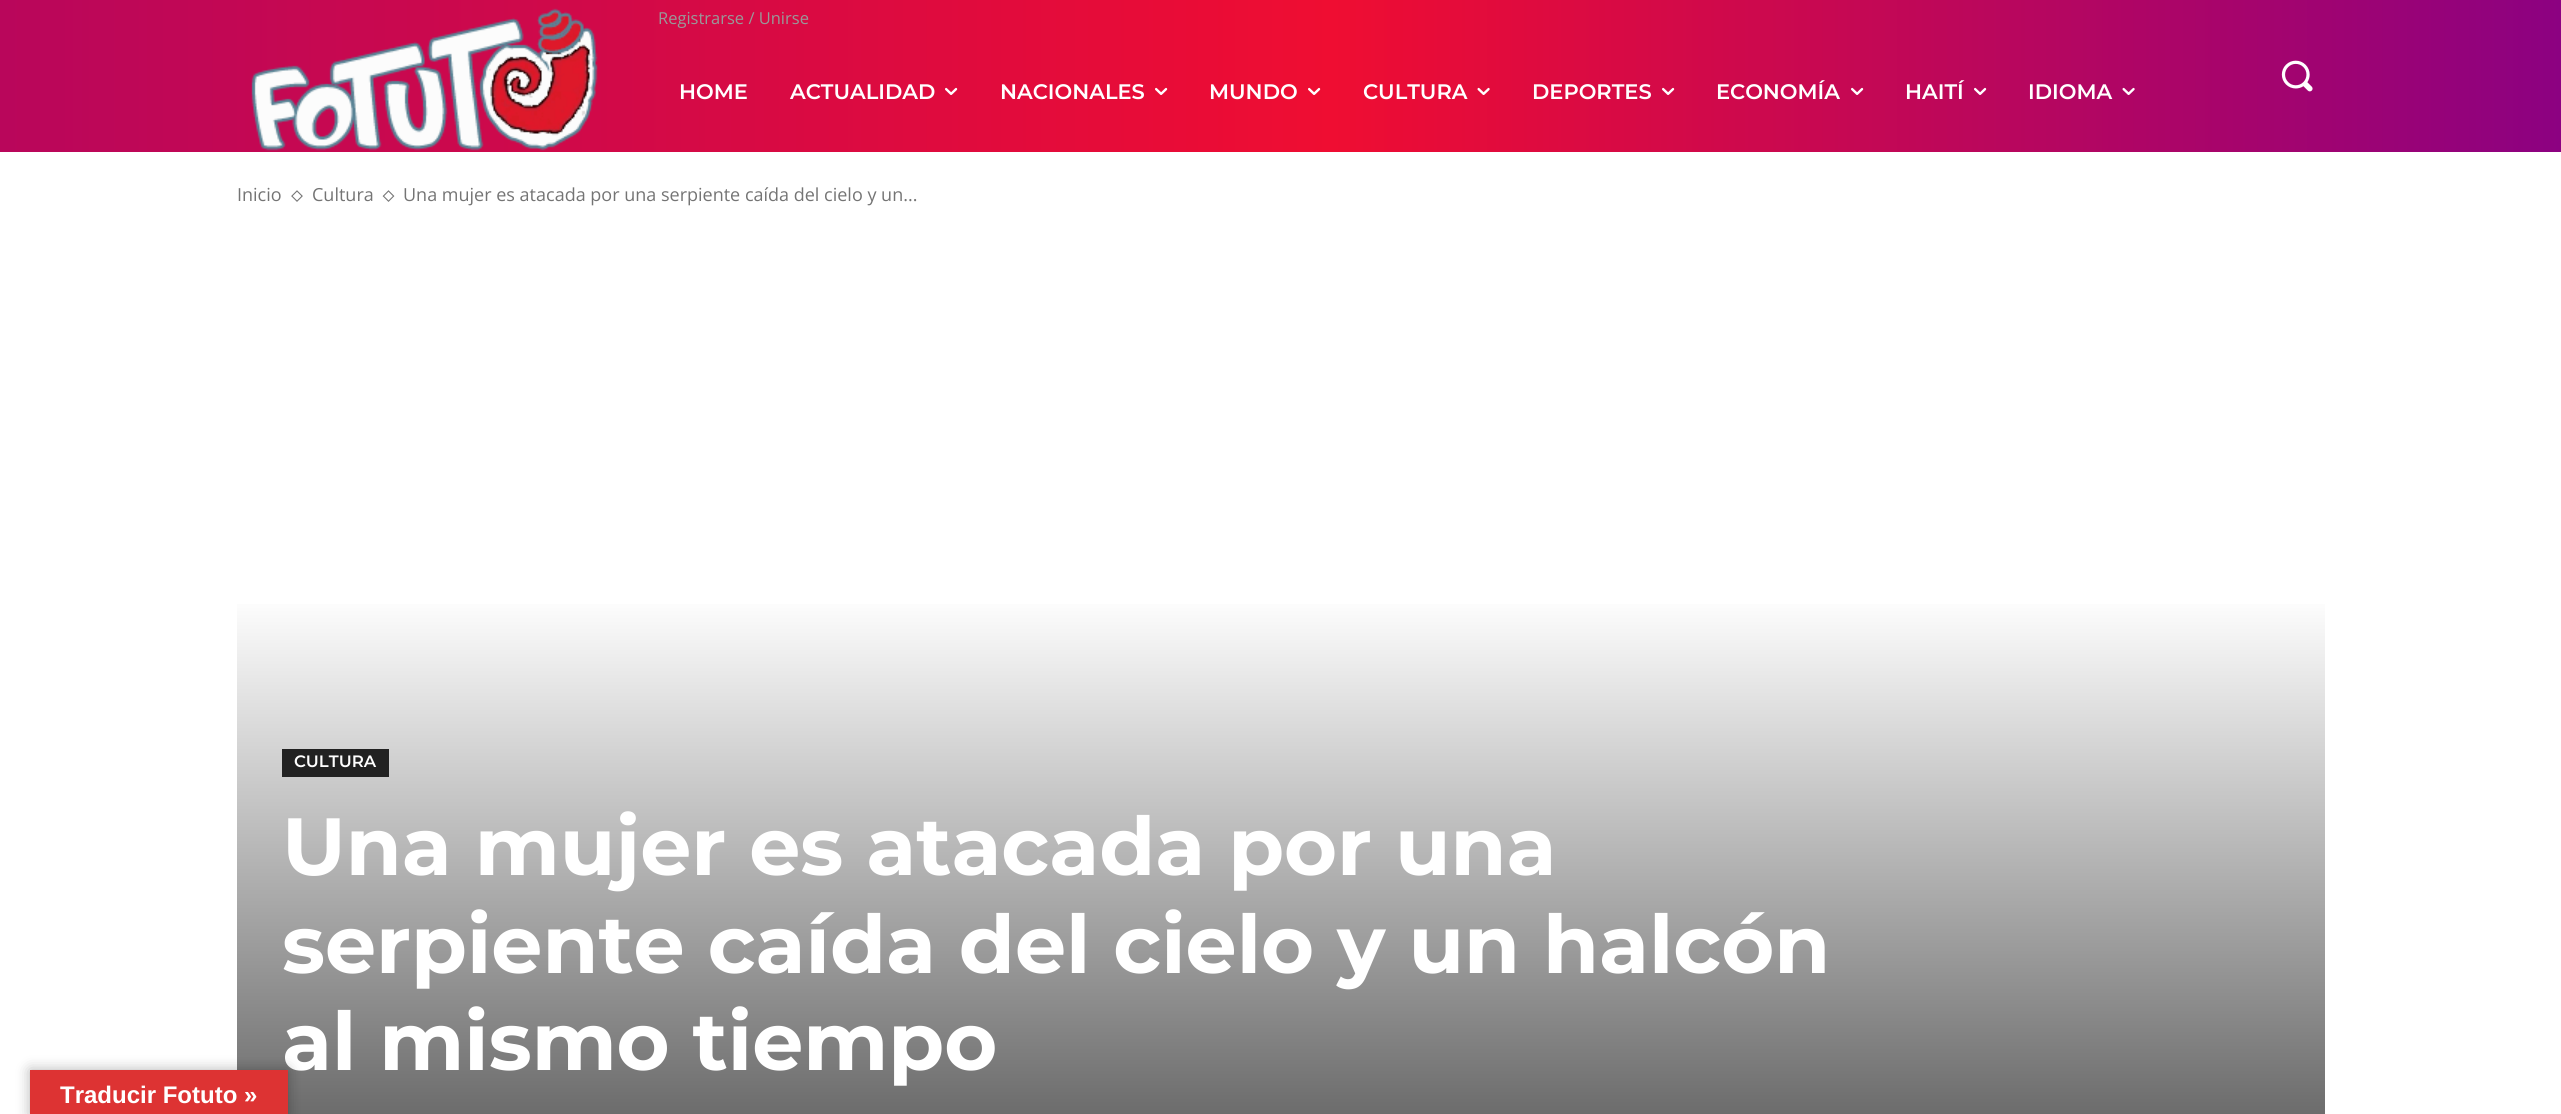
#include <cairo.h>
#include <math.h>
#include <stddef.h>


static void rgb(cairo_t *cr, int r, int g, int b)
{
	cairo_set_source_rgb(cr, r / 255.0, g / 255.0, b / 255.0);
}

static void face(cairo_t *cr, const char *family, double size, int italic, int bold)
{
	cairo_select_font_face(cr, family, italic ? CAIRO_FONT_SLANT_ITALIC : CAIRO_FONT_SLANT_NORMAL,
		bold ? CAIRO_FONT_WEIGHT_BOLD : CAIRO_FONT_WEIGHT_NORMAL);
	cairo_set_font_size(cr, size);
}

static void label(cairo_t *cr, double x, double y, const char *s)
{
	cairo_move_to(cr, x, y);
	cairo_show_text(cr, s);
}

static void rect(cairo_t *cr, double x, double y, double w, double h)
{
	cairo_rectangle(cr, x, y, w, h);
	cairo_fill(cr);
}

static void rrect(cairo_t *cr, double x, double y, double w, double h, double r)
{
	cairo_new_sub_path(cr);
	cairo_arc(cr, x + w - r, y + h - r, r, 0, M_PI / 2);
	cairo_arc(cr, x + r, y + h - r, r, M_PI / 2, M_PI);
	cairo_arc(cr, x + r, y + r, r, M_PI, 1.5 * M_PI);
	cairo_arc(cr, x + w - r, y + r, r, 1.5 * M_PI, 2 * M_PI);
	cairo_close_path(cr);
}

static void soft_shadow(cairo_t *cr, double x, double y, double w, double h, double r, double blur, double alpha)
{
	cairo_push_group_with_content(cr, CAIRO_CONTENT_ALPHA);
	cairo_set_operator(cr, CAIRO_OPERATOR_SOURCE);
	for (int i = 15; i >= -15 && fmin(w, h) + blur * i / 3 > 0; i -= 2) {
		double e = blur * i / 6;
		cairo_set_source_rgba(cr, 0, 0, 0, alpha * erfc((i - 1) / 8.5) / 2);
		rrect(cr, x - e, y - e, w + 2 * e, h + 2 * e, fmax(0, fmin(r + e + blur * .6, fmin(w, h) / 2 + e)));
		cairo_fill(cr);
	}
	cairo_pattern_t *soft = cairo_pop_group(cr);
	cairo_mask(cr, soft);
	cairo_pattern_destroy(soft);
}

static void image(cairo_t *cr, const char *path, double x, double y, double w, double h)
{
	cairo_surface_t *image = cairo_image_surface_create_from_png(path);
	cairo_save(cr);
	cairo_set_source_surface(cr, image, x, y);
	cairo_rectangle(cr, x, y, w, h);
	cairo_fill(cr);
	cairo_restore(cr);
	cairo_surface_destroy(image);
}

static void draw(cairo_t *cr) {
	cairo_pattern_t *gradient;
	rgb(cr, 255, 255, 255);
	cairo_paint(cr);
	gradient = cairo_pattern_create_linear(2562, 76, 0, 76);
	cairo_pattern_add_color_stop_rgba(gradient, 0, 0.549, 0.004, 0.506, 1);
	cairo_pattern_add_color_stop_rgba(gradient, 0.48, 0.937, 0.051, 0.196, 1);
	cairo_pattern_add_color_stop_rgba(gradient, 1, 0.725, 0.024, 0.357, 1);
	cairo_set_source(cr, gradient);
	cairo_pattern_destroy(gradient);
	rect(cr, 0, 0, 2561, 152);
	image(cr, "image0.png", 251, 8, 347, 143);
	face(cr, "Open Sans", 16.5, 0, 0);
	rgb(cr, 153, 153, 153);
	label(cr, 658, 24, "Registrarse / Unirse");
	face(cr, "Montserrat SemiBold", 21, 0, 0);
	rgb(cr, 255, 255, 255);
	label(cr, 679, 99, "HOME");
	label(cr, 790, 99, "ACTUALIDAD");
	image(cr, "image1.png", 945, 87, 13, 8);
	label(cr, 1000, 99, "NACIONALES");
	image(cr, "image2.png", 1155, 87, 13, 8);
	label(cr, 1209, 99, "MUNDO");
	image(cr, "image3.png", 1308, 87, 13, 8);
	label(cr, 1363, 99, "CULTURA");
	image(cr, "image4.png", 1477, 87, 13, 8);
	label(cr, 1532, 99, "DEPORTES");
	image(cr, "image5.png", 1662, 87, 13, 8);
	label(cr, 1716, 99, "ECONOMÍA");
	image(cr, "image6.png", 1851, 87, 13, 8);
	label(cr, 1905, 99, "HAITÍ");
	image(cr, "image7.png", 1974, 87, 13, 8);
	label(cr, 2028, 99, "IDIOMA");
	image(cr, "image8.png", 2122, 87, 13, 8);
	image(cr, "image9.png", 2281, 60, 32, 32);
	face(cr, "Open Sans", 18, 0, 0);
	rgb(cr, 116, 116, 116);
	label(cr, 237, 201, "Inicio");
	image(cr, "image10.png", 291, 190, 12, 12);
	label(cr, 312, 201, "Cultura");
	image(cr, "image11.png", 382, 190, 13, 12);
	label(cr, 403, 201, "Una mujer es atacada por una serpiente caída del cielo y un...");
	gradient = cairo_pattern_create_linear(1281, 235, 1281, 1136);
	cairo_pattern_add_color_stop_rgba(gradient, 0, 1, 1, 1, 1);
	cairo_pattern_add_color_stop_rgba(gradient, 0.4, 1, 1, 1, 1);
	cairo_pattern_add_color_stop_rgba(gradient, 1, 0.4, 0.4, 0.4, 1);
	cairo_set_source(cr, gradient);
	cairo_pattern_destroy(gradient);
	rect(cr, 237, 604, 2088, 510);
	rgb(cr, 34, 34, 34);
	rect(cr, 282, 749, 107, 28);
	face(cr, "Montserrat SemiBold", 16.5, 0, 0);
	rgb(cr, 255, 255, 255);
	label(cr, 294, 767, "CULTURA");
	face(cr, "Montserrat", 81, 0, 1);
	label(cr, 282, 875, "Una mujer es atacada por una");
	label(cr, 282, 973, "serpiente caída del cielo y un halcón");
	label(cr, 282, 1070, "al mismo tiempo");
	rgb(cr, 0, 0, 0);
	soft_shadow(cr, 30, 1070, 258, 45, 0, 7, 0.3);
	rgb(cr, 221, 51, 51);
	rect(cr, 30, 1070, 258, 44);
	face(cr, "Liberation Sans", 24, 0, 1);
	rgb(cr, 255, 255, 255);
	label(cr, 60, 1103, "Traducir Fotuto »");
}

int main(void) {
	cairo_surface_t *surface = cairo_image_surface_create(CAIRO_FORMAT_RGB24, 2561, 1114);
	cairo_t *cr = cairo_create(surface);
	cairo_font_options_t *options = cairo_font_options_create();
	cairo_font_options_set_hint_metrics(options, CAIRO_HINT_METRICS_OFF);
	cairo_font_options_set_hint_style(options, CAIRO_HINT_STYLE_NONE);
	cairo_set_font_options(cr, options);
	cairo_set_miter_limit(cr, 4);
	draw(cr);
	cairo_surface_write_to_png(surface, "render.png");
	cairo_font_options_destroy(options);
	cairo_destroy(cr);
	cairo_surface_destroy(surface);
	return 0;
}
